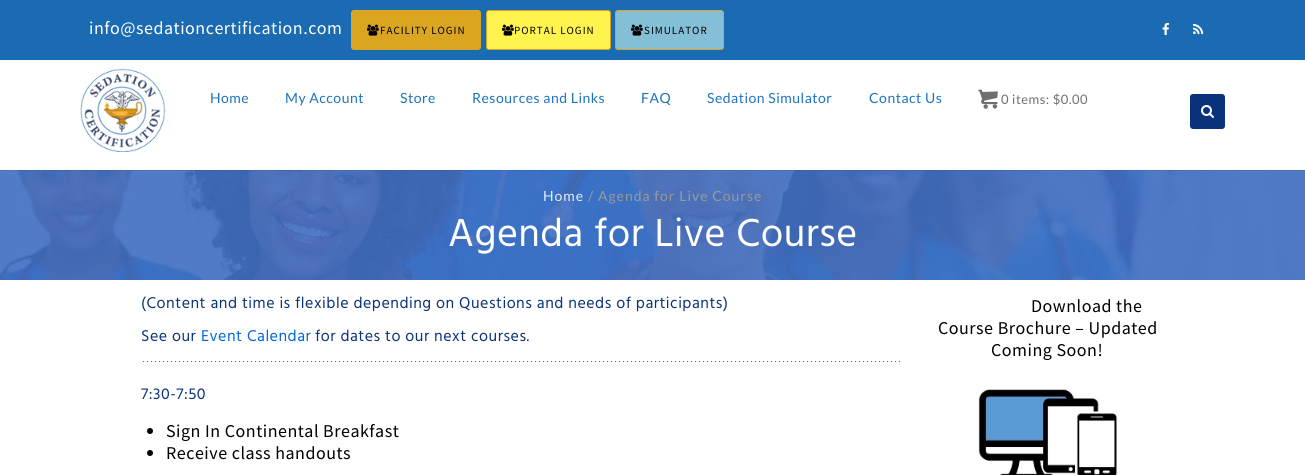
#include <cairo.h>
#include <math.h>
#include <stddef.h>


static void rgb(cairo_t *cr, int r, int g, int b)
{
	cairo_set_source_rgb(cr, r / 255.0, g / 255.0, b / 255.0);
}

static void face(cairo_t *cr, const char *family, double size, int italic, int bold)
{
	cairo_select_font_face(cr, family, italic ? CAIRO_FONT_SLANT_ITALIC : CAIRO_FONT_SLANT_NORMAL,
		bold ? CAIRO_FONT_WEIGHT_BOLD : CAIRO_FONT_WEIGHT_NORMAL);
	cairo_set_font_size(cr, size);
}

static void tracked(cairo_t *cr, double x, double y, const char *s, double letter, double word)
{
	cairo_move_to(cr, x, y);
	while (*s) {
		char ch[5] = {0};
		int n = 0;
		do ch[n++] = *s++; while ((*s & 0xC0) == 0x80);
		cairo_show_text(cr, ch);
		cairo_rel_move_to(cr, letter + word * (*ch == ' '), 0);
	}
}

static void rect(cairo_t *cr, double x, double y, double w, double h)
{
	cairo_rectangle(cr, x, y, w, h);
	cairo_fill(cr);
}

static void rrect(cairo_t *cr, double x, double y, double w, double h, double r)
{
	cairo_new_sub_path(cr);
	cairo_arc(cr, x + w - r, y + h - r, r, 0, M_PI / 2);
	cairo_arc(cr, x + r, y + h - r, r, M_PI / 2, M_PI);
	cairo_arc(cr, x + r, y + r, r, M_PI, 1.5 * M_PI);
	cairo_arc(cr, x + w - r, y + r, r, 1.5 * M_PI, 2 * M_PI);
	cairo_close_path(cr);
}

static void soft_shadow(cairo_t *cr, double x, double y, double w, double h, double r, double blur, double alpha)
{
	cairo_push_group_with_content(cr, CAIRO_CONTENT_ALPHA);
	cairo_set_operator(cr, CAIRO_OPERATOR_SOURCE);
	for (int i = 15; i >= -15 && fmin(w, h) + blur * i / 3 > 0; i -= 2) {
		double e = blur * i / 6;
		cairo_set_source_rgba(cr, 0, 0, 0, alpha * erfc((i - 1) / 8.5) / 2);
		rrect(cr, x - e, y - e, w + 2 * e, h + 2 * e, fmax(0, fmin(r + e + blur * .6, fmin(w, h) / 2 + e)));
		cairo_fill(cr);
	}
	cairo_pattern_t *soft = cairo_pop_group(cr);
	cairo_mask(cr, soft);
	cairo_pattern_destroy(soft);
}

static void image(cairo_t *cr, const char *path, double x, double y, double w, double h)
{
	cairo_surface_t *image = cairo_image_surface_create_from_png(path);
	cairo_save(cr);
	cairo_set_source_surface(cr, image, x, y);
	cairo_rectangle(cr, x, y, w, h);
	cairo_fill(cr);
	cairo_restore(cr);
	cairo_surface_destroy(image);
}

static void draw(cairo_t *cr) {
	rgb(cr, 255, 255, 255);
	cairo_paint(cr);
	image(cr, "image8.png", 0, 170, 1305, 110);
	cairo_save(cr);
	cairo_rectangle(cr, 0, 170, 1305, 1);
	cairo_clip(cr);
	rgb(cr, 0, 0, 0);
	soft_shadow(cr, 0, 61, 1305, 110, 0, 0.5, 0.06);
	cairo_restore(cr);
	rgb(cr, 26, 107, 178);
	rect(cr, 0, 0, 1305, 60);
	face(cr, "Source Sans Pro", 18, 0, 0);
	rgb(cr, 255, 255, 255);
	tracked(cr, 89, 34, "info@sedationcertification.com", 0.5, 0);
	rgb(cr, 218, 165, 32);
	rrect(cr, 351.5, 10.5, 129, 39, 2.5);
	cairo_fill_preserve(cr);
	cairo_set_line_width(cr, 1);
	cairo_stroke(cr);
	image(cr, "image0.png", 367, 24, 12, 12);
	face(cr, "Source Sans Pro", 11, 0, 0);
	rgb(cr, 0, 0, 0);
	tracked(cr, 380, 34, "FACILITY LOGIN", 1, 0);
	rgb(cr, 255, 244, 79);
	rrect(cr, 486.5, 10.5, 124, 39, 2.5);
	cairo_fill_preserve(cr);
	rgb(cr, 218, 165, 32);
	cairo_stroke(cr);
	image(cr, "image1.png", 502, 24, 12, 12);
	rgb(cr, 0, 0, 0);
	tracked(cr, 514, 34, "PORTAL LOGIN", 1, 0);
	rgb(cr, 132, 191, 215);
	rrect(cr, 615.5, 10.5, 108, 39, 2.5);
	cairo_fill_preserve(cr);
	rgb(cr, 218, 165, 32);
	cairo_stroke(cr);
	image(cr, "image2.png", 631, 24, 12, 12);
	rgb(cr, 0, 0, 0);
	tracked(cr, 644, 34, "SIMULATOR", 1, 0);
	image(cr, "image3.png", 1162, 22, 7, 13);
	image(cr, "image4.png", 1193, 23, 11, 12);
	image(cr, "image5.png", 80, 68, 86, 84);
	face(cr, "Lato", 14, 0, 0);
	rgb(cr, 30, 115, 190);
	tracked(cr, 210, 103, "Home", 0.5, 0);
	tracked(cr, 285, 103, "My Account", 0.5, 0);
	tracked(cr, 400, 103, "Store", 0.5, 0);
	tracked(cr, 472, 103, "Resources and Links", 0.5, 0);
	tracked(cr, 641, 103, "FAQ", 0.5, 0);
	tracked(cr, 707, 103, "Sedation Simulator", 0.5, 0);
	tracked(cr, 869, 103, "Contact Us", 0.5, 0);
	image(cr, "image6.png", 978, 89, 20, 20);
	face(cr, "Lato", 13, 0, 0);
	rgb(cr, 111, 111, 111);
	tracked(cr, 1001, 104, "0 items: $0.00", 0.5, 0);
	cairo_set_source_rgba(cr, 0.118, 0.451, 0.745, 0.12);
	rect(cr, 137, 99, 1, 22);
	rgb(cr, 10, 50, 122);
	rrect(cr, 1190, 94, 35, 35, 3);
	cairo_fill(cr);
	image(cr, "image7.png", 1201, 105, 13, 13);
	face(cr, "Lato", 14, 0, 0);
	rgb(cr, 228, 235, 246);
	tracked(cr, 543, 201, "Home", 1, 0);
	rgb(cr, 153, 153, 153);
	tracked(cr, 588, 201, "/ Agenda for Live Course", 1, 0);
	face(cr, "Hind", 40, 0, 0);
	rgb(cr, 255, 255, 255);
	tracked(cr, 448, 246, "Agenda for Live Course", 0.5, 0);
	face(cr, "Hind", 16, 0, 0);
	rgb(cr, 10, 50, 122);
	tracked(cr, 141, 308, "(Content and time is flexible depending on Questions and needs of participants)", 0.5, 0);
	tracked(cr, 141, 341, "See our", 0.5, 0);
	rgb(cr, 0, 102, 219);
	tracked(cr, 201, 341, "Event Calendar", 0.5, 0);
	rgb(cr, 10, 50, 122);
	tracked(cr, 315, 341, "for dates to our next courses.", 0.5, 0);
	image(cr, "image9.png", 142, 361, 758, 1);
	tracked(cr, 141, 399, "7:30-7:50", 0.5, 0);
	rgb(cr, 0, 0, 0);
	cairo_new_path(cr);
	cairo_arc(cr, 150, 431, 3, 0, 2 * M_PI);
	cairo_fill(cr);
	face(cr, "Source Sans Pro", 18, 0, 0);
	tracked(cr, 166, 437, "Sign In Continental Breakfast", 0.5, 0);
	cairo_new_path(cr);
	cairo_arc(cr, 150, 453, 3, 0, 2 * M_PI);
	cairo_fill(cr);
	tracked(cr, 166, 459, "Receive class handouts", 0.5, 0);
	tracked(cr, 1031, 312, "Download the", 0.5, 0);
	tracked(cr, 938, 334, "Course Brochure – Updated", 0.5, 0);
	tracked(cr, 991, 356, "Coming Soon!", 0.5, 0);
	image(cr, "image10.png", 978, 389, 140, 86);
}

int main(void) {
	cairo_surface_t *surface = cairo_image_surface_create(CAIRO_FORMAT_RGB24, 1305, 475);
	cairo_t *cr = cairo_create(surface);
	cairo_font_options_t *options = cairo_font_options_create();
	cairo_font_options_set_hint_metrics(options, CAIRO_HINT_METRICS_OFF);
	cairo_font_options_set_hint_style(options, CAIRO_HINT_STYLE_NONE);
	cairo_set_font_options(cr, options);
	cairo_set_miter_limit(cr, 4);
	draw(cr);
	cairo_surface_write_to_png(surface, "render.png");
	cairo_font_options_destroy(options);
	cairo_destroy(cr);
	cairo_surface_destroy(surface);
	return 0;
}
